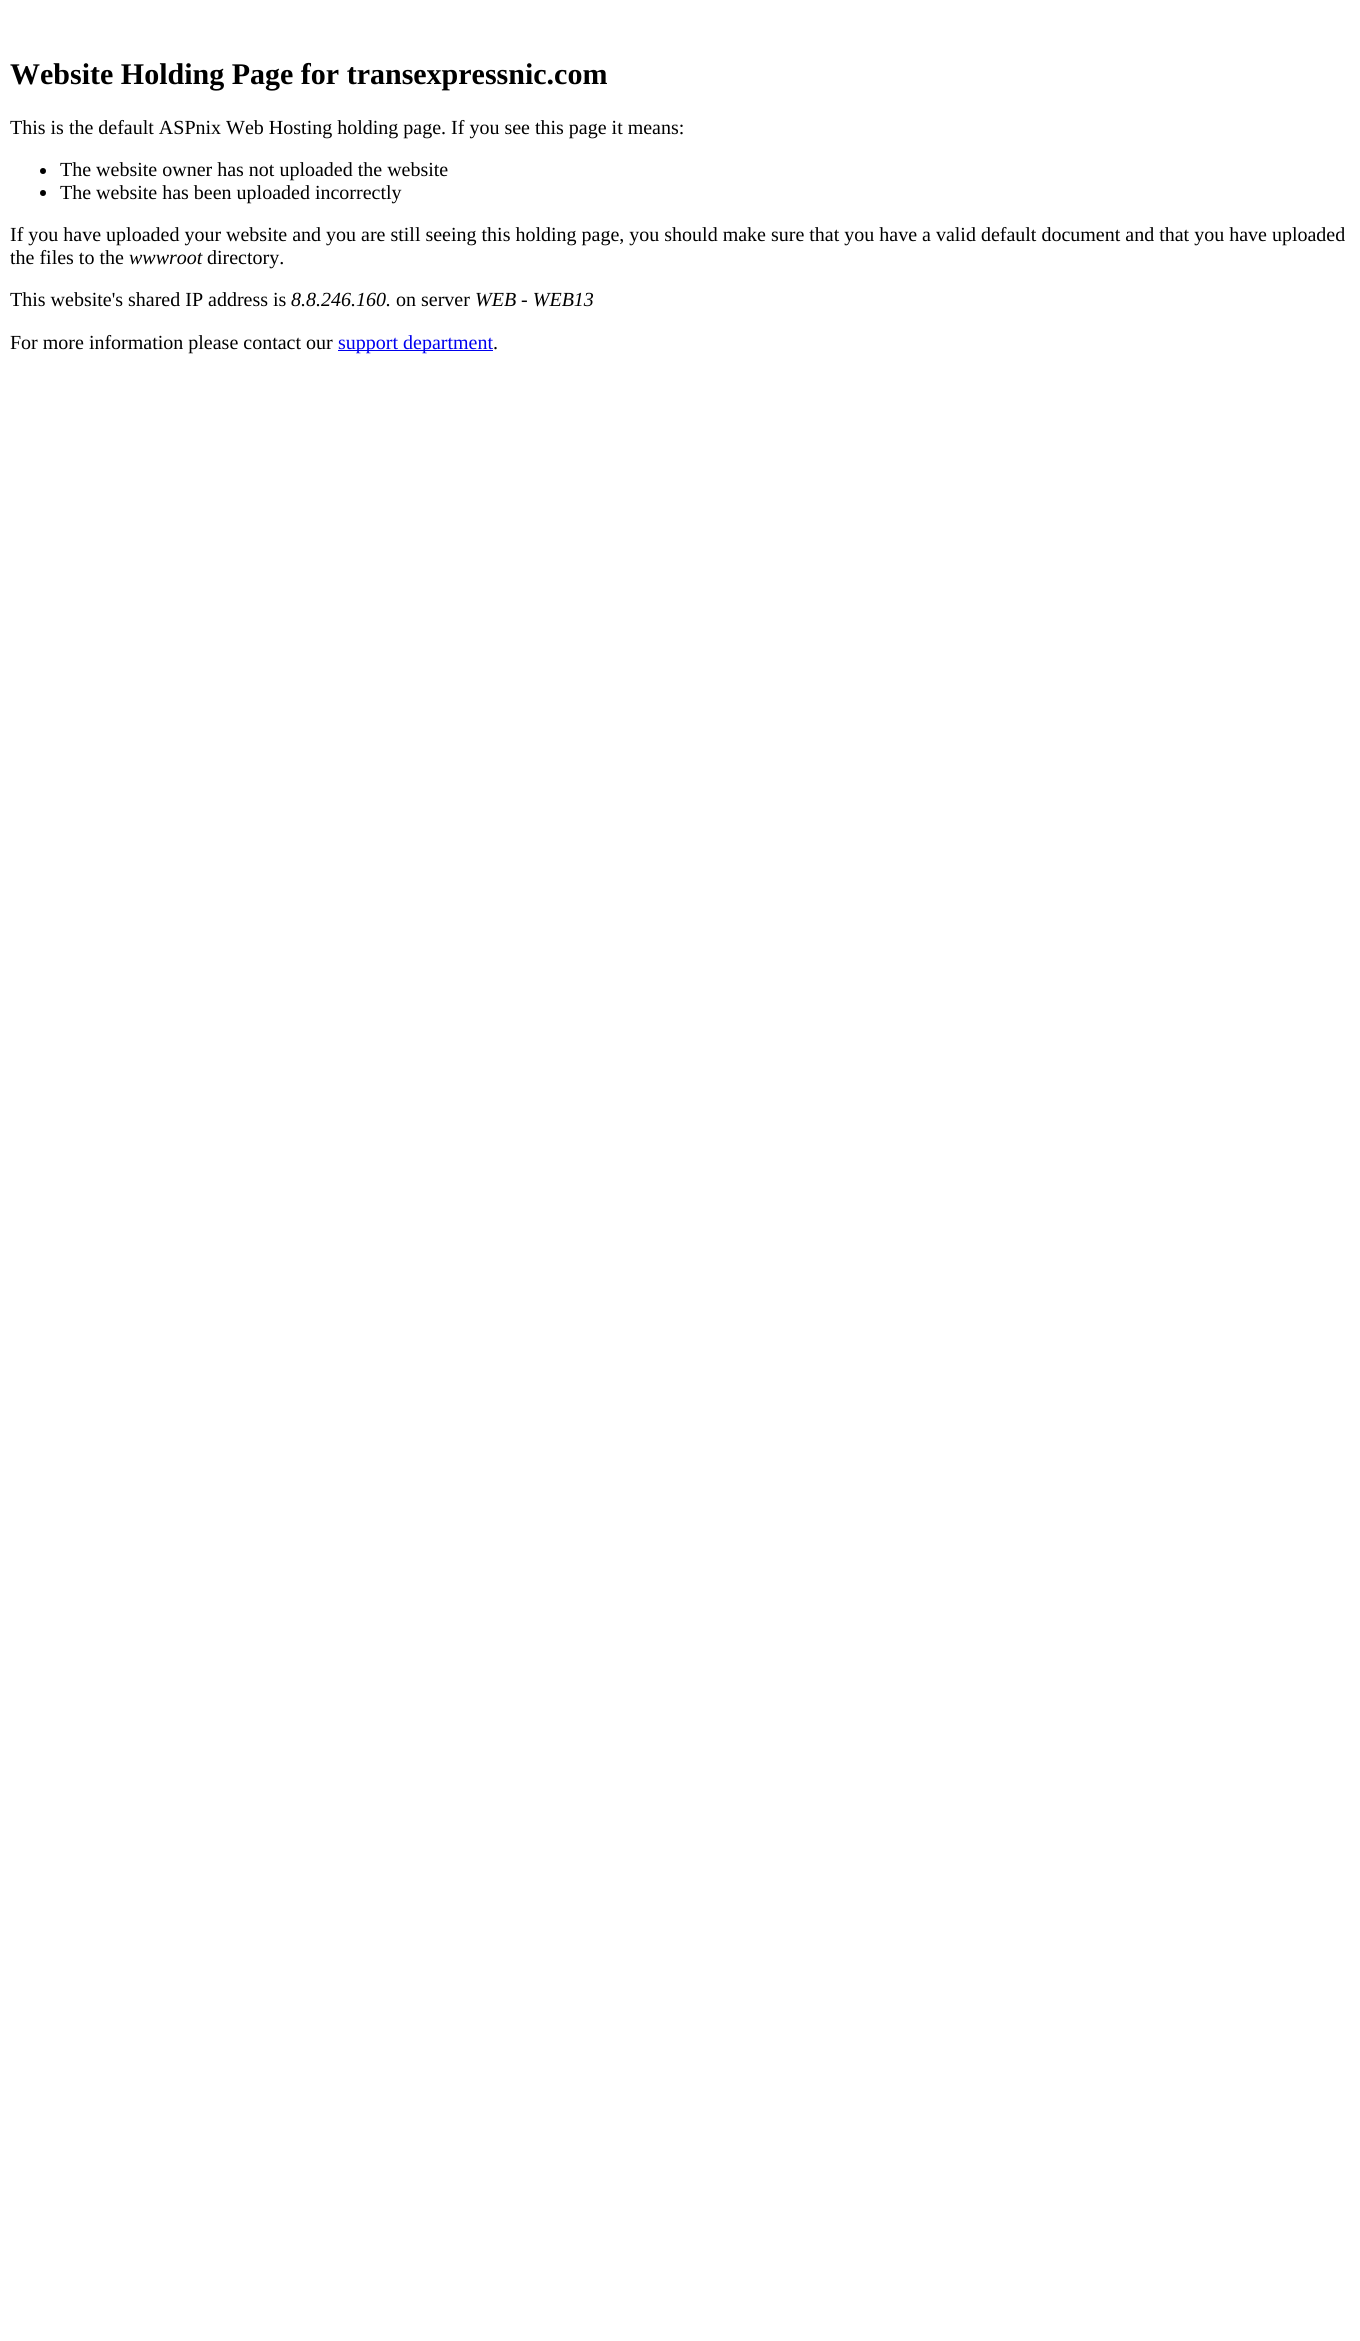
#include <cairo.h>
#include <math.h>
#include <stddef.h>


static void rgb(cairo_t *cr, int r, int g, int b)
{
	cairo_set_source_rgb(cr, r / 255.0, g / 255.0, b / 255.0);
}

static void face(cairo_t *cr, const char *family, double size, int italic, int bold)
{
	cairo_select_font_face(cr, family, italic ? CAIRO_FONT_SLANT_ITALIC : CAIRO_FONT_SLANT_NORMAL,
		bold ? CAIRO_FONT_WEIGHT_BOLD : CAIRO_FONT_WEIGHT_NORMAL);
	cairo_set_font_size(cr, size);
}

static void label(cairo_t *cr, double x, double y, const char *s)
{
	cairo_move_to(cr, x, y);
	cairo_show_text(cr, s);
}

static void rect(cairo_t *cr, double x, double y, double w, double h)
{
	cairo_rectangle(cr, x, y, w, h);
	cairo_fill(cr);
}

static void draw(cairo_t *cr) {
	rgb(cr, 255, 255, 255);
	cairo_paint(cr);
	face(cr, "Liberation Serif", 30, 0, 1);
	rgb(cr, 0, 0, 0);
	label(cr, 10, 84, "Website Holding Page for transexpressnic.com");
	face(cr, "Liberation Serif", 20, 0, 0);
	label(cr, 10, 134, "This is the default ASPnix Web Hosting holding page. If you see this page it means:");
	cairo_new_path(cr);
	cairo_arc(cr, 43, 171, 3, 0, 2 * M_PI);
	cairo_fill(cr);
	label(cr, 60, 176, "The website owner has not uploaded the website");
	cairo_new_path(cr);
	cairo_arc(cr, 43, 193, 3, 0, 2 * M_PI);
	cairo_fill(cr);
	label(cr, 60, 199, "The website has been uploaded incorrectly");
	label(cr, 10, 241, "If you have uploaded your website and you are still seeing this holding page, you should make sure that you have a valid default document and that you have uploaded");
	label(cr, 10, 264, "the files to the");
	face(cr, "Liberation Serif", 20, 1, 0);
	label(cr, 129, 264, "wwwroot");
	face(cr, "Liberation Serif", 20, 0, 0);
	label(cr, 207, 264, "directory.");
	label(cr, 10, 306, "This website's shared IP address is");
	face(cr, "Liberation Serif", 20, 1, 0);
	label(cr, 291, 306, "8.8.246.160.");
	face(cr, "Liberation Serif", 20, 0, 0);
	label(cr, 396, 306, "on server");
	face(cr, "Liberation Serif", 20, 1, 0);
	label(cr, 475, 306, "WEB - WEB13");
	face(cr, "Liberation Serif", 20, 0, 0);
	label(cr, 10, 349, "For more information please contact our");
	rgb(cr, 0, 0, 238);
	rect(cr, 338, 350, 155, 1);
	label(cr, 338, 349, "support department");
	rgb(cr, 0, 0, 0);
	label(cr, 493, 349, ".");
}

int main(void) {
	cairo_surface_t *surface = cairo_image_surface_create(CAIRO_FORMAT_RGB24, 1360, 2341);
	cairo_t *cr = cairo_create(surface);
	cairo_font_options_t *options = cairo_font_options_create();
	cairo_font_options_set_hint_metrics(options, CAIRO_HINT_METRICS_OFF);
	cairo_font_options_set_hint_style(options, CAIRO_HINT_STYLE_NONE);
	cairo_set_font_options(cr, options);
	cairo_set_miter_limit(cr, 4);
	draw(cr);
	cairo_surface_write_to_png(surface, "render.png");
	cairo_font_options_destroy(options);
	cairo_destroy(cr);
	cairo_surface_destroy(surface);
	return 0;
}
